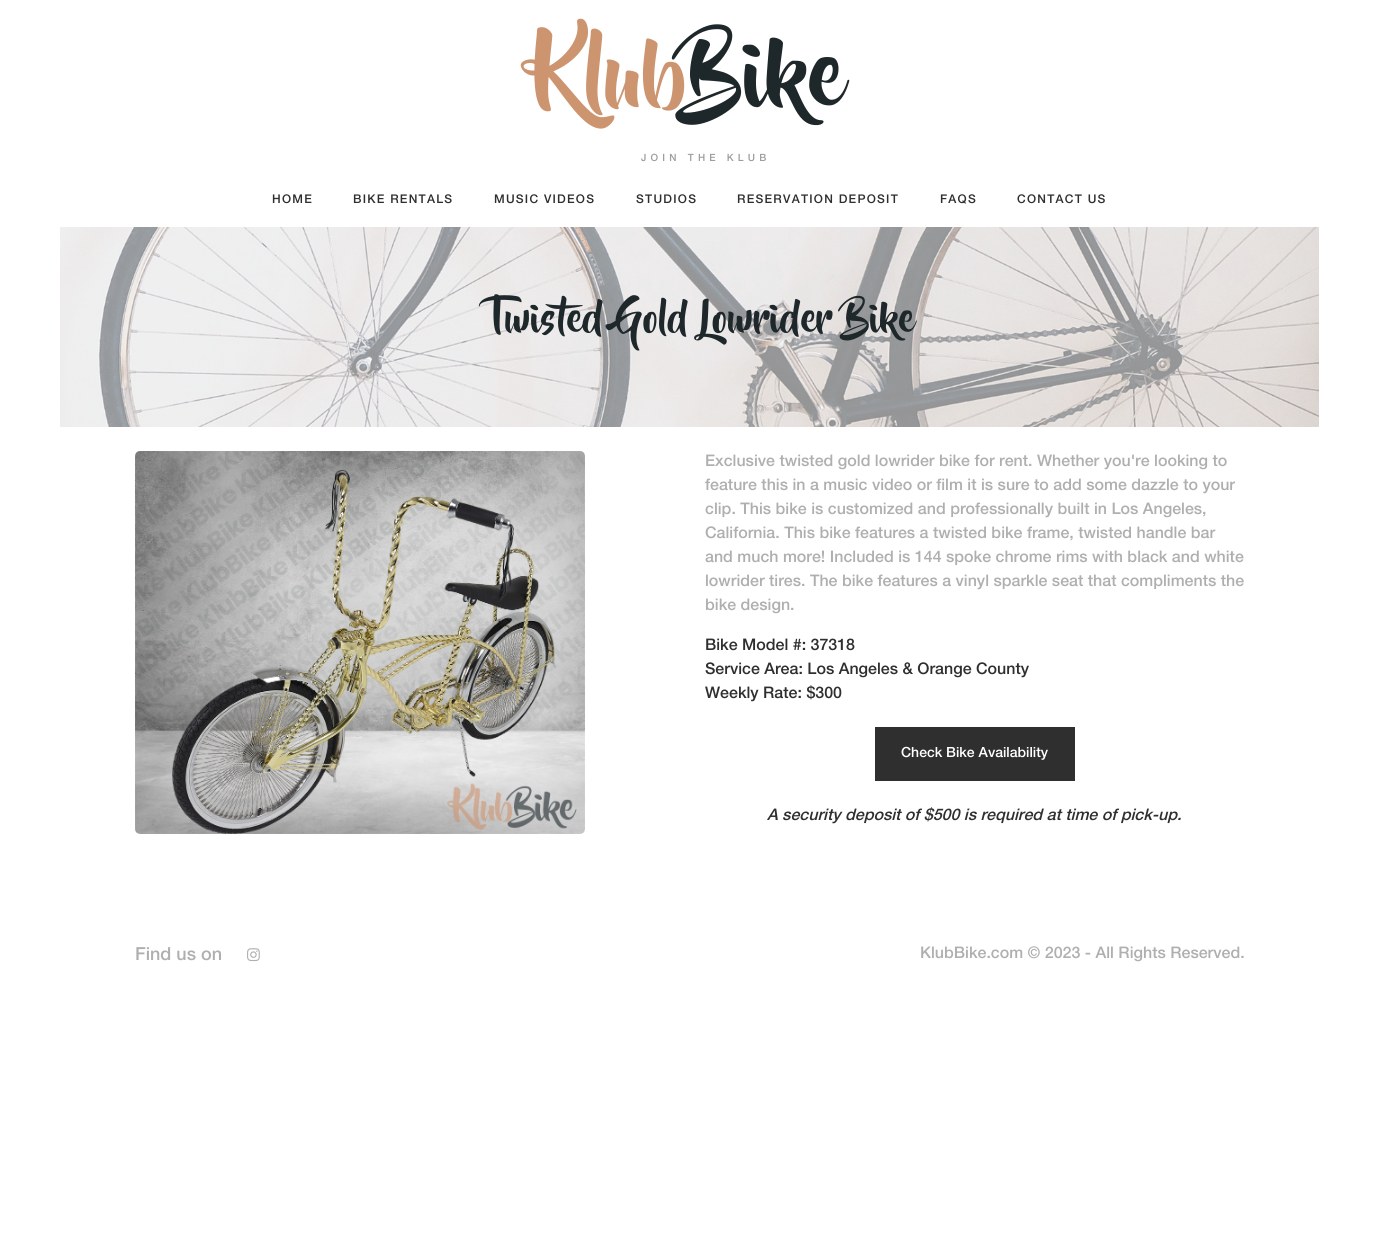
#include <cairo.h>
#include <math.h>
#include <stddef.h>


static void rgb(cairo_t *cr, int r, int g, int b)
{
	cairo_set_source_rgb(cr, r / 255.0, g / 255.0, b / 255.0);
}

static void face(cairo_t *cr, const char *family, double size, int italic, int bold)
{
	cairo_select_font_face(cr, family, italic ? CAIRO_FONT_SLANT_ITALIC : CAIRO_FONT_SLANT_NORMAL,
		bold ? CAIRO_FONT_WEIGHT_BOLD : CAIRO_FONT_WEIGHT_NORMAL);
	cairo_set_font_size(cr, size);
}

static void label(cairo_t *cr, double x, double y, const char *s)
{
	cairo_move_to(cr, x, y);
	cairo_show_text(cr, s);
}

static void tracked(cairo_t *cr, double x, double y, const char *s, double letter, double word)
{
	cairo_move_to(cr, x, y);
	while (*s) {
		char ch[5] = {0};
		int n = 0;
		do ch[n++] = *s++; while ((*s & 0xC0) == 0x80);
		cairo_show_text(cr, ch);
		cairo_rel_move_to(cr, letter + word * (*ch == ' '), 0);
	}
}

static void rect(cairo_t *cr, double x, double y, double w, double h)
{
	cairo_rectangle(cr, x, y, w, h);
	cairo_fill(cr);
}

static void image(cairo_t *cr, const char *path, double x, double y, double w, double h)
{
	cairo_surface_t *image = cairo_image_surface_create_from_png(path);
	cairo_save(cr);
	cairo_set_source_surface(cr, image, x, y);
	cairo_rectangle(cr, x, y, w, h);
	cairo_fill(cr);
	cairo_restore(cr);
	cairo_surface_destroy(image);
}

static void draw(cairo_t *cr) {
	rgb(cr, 255, 255, 255);
	cairo_paint(cr);
	face(cr, "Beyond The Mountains", 90, 0, 0);
	rgb(cr, 205, 148, 112);
	label(cr, 536, 108, "Klub");
	rgb(cr, 30, 39, 42);
	label(cr, 687, 108, "Bike");
	face(cr, "Helvetica Neue Medium", 10, 0, 0);
	rgb(cr, 157, 157, 157);
	tracked(cr, 641, 161, "JOIN THE KLUB", 4.2, 0);
	face(cr, "Helvetica Neue Medium", 12, 0, 0);
	rgb(cr, 47, 47, 47);
	tracked(cr, 272, 203, "HOME", 1.25, 0);
	tracked(cr, 353, 203, "BIKE RENTALS", 1.25, 0);
	tracked(cr, 494, 203, "MUSIC VIDEOS", 1.25, 0);
	tracked(cr, 636, 203, "STUDIOS", 1.25, 0);
	tracked(cr, 737, 203, "RESERVATION DEPOSIT", 1.25, 0);
	tracked(cr, 940, 203, "FAQS", 1.25, 0);
	tracked(cr, 1017, 203, "CONTACT US", 1.25, 0);
	image(cr, "image0.png", 60, 227, 1259, 200);
	face(cr, "Beyond The Mountains", 40, 0, 0);
	rgb(cr, 30, 39, 42);
	label(cr, 491, 333, "Twisted Gold Lowrider Bike");
	image(cr, "image1.png", 135, 451, 450, 383);
	face(cr, "Helvetica Neue Medium", 16, 0, 0);
	rgb(cr, 175, 175, 175);
	label(cr, 705, 466, "Exclusive twisted gold lowrider bike for rent. Whether you're looking to");
	label(cr, 705, 490, "feature this in a music video or film it is sure to add some dazzle to your");
	label(cr, 705, 514, "clip. This bike is customized and professionally built in Los Angeles,");
	label(cr, 705, 538, "California. This bike features a twisted bike frame, twisted handle bar");
	label(cr, 705, 562, "and much more! Included is 144 spoke chrome rims with black and white");
	label(cr, 705, 586, "lowrider tires. The bike features a vinyl sparkle seat that compliments the");
	label(cr, 705, 610, "bike design.");
	rgb(cr, 47, 47, 47);
	label(cr, 705, 650, "Bike Model #: 37318");
	label(cr, 705, 674, "Service Area: Los Angeles & Orange County");
	label(cr, 705, 698, "Weekly Rate: $300");
	rect(cr, 875, 727, 200, 54);
	face(cr, "Helvetica Neue Medium", 14, 0, 0);
	rgb(cr, 255, 255, 255);
	label(cr, 901, 757, "Check Bike Availability");
	face(cr, "Helvetica Neue Medium", 16, 1, 0);
	rgb(cr, 47, 47, 47);
	label(cr, 767, 820, "A security deposit of $500 is required at time of pick-up.");
	face(cr, "Helvetica Neue Medium", 18, 0, 0);
	rgb(cr, 175, 175, 175);
	label(cr, 135, 960, "Find us on");
	image(cr, "image2.png", 247, 948, 13, 14);
	face(cr, "Helvetica Neue Medium", 16, 0, 0);
	label(cr, 920, 958, "KlubBike.com © 2023 - All Rights Reserved.");
}

int main(void) {
	cairo_surface_t *surface = cairo_image_surface_create(CAIRO_FORMAT_RGB24, 1379, 1252);
	cairo_t *cr = cairo_create(surface);
	cairo_font_options_t *options = cairo_font_options_create();
	cairo_font_options_set_hint_metrics(options, CAIRO_HINT_METRICS_OFF);
	cairo_font_options_set_hint_style(options, CAIRO_HINT_STYLE_NONE);
	cairo_set_font_options(cr, options);
	cairo_set_miter_limit(cr, 4);
	draw(cr);
	cairo_surface_write_to_png(surface, "render.png");
	cairo_font_options_destroy(options);
	cairo_destroy(cr);
	cairo_surface_destroy(surface);
	return 0;
}
